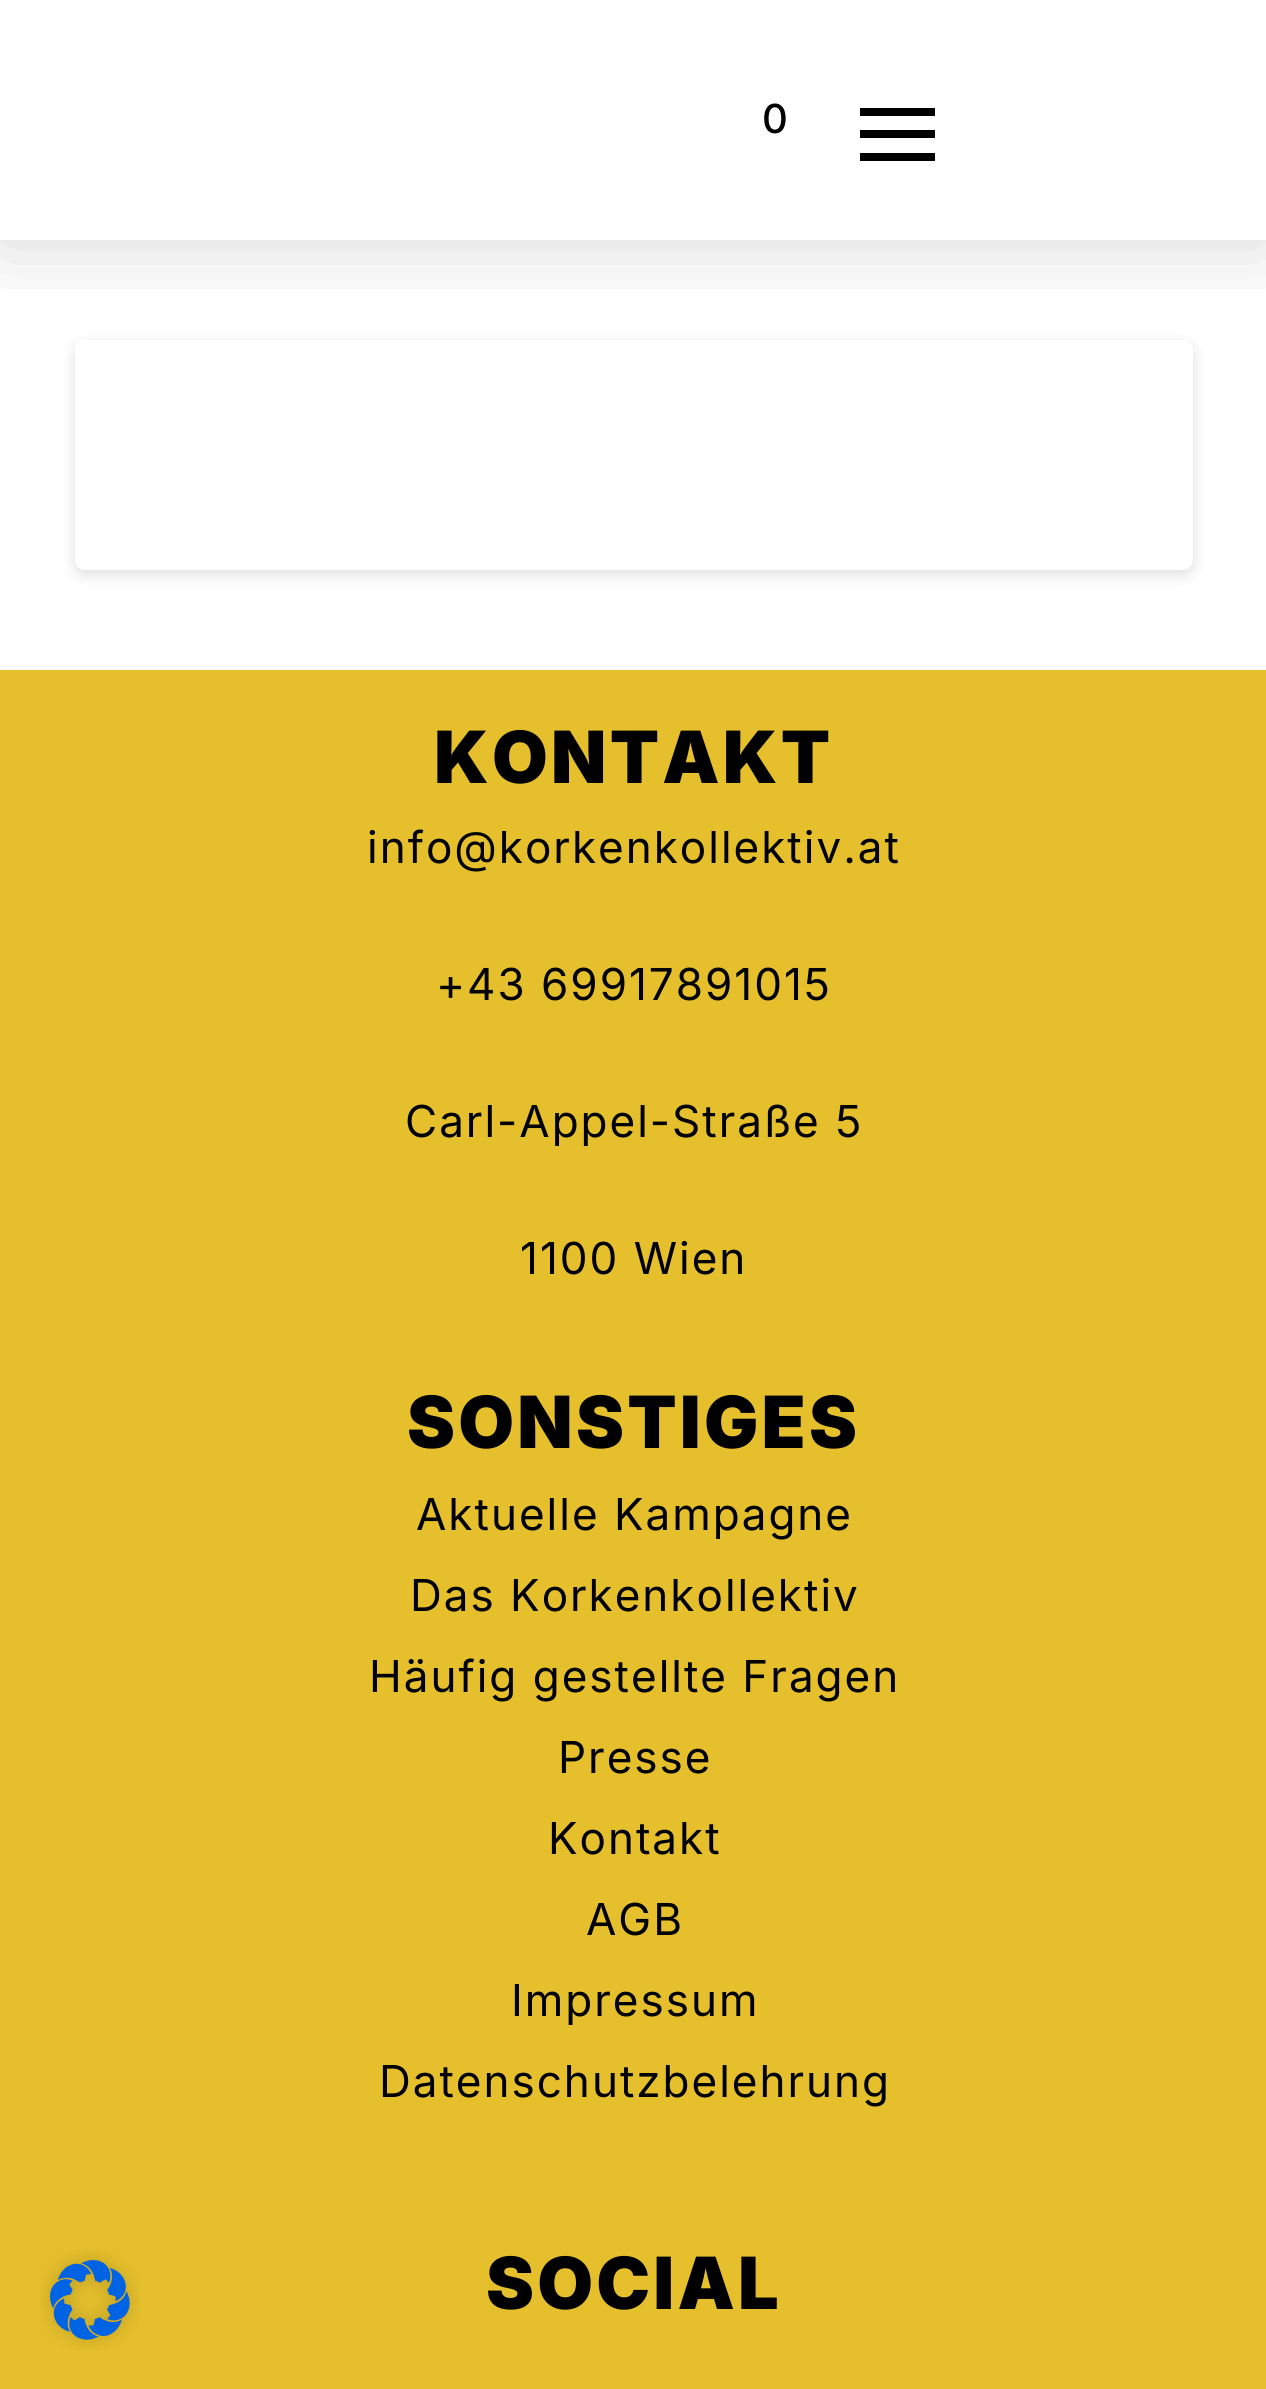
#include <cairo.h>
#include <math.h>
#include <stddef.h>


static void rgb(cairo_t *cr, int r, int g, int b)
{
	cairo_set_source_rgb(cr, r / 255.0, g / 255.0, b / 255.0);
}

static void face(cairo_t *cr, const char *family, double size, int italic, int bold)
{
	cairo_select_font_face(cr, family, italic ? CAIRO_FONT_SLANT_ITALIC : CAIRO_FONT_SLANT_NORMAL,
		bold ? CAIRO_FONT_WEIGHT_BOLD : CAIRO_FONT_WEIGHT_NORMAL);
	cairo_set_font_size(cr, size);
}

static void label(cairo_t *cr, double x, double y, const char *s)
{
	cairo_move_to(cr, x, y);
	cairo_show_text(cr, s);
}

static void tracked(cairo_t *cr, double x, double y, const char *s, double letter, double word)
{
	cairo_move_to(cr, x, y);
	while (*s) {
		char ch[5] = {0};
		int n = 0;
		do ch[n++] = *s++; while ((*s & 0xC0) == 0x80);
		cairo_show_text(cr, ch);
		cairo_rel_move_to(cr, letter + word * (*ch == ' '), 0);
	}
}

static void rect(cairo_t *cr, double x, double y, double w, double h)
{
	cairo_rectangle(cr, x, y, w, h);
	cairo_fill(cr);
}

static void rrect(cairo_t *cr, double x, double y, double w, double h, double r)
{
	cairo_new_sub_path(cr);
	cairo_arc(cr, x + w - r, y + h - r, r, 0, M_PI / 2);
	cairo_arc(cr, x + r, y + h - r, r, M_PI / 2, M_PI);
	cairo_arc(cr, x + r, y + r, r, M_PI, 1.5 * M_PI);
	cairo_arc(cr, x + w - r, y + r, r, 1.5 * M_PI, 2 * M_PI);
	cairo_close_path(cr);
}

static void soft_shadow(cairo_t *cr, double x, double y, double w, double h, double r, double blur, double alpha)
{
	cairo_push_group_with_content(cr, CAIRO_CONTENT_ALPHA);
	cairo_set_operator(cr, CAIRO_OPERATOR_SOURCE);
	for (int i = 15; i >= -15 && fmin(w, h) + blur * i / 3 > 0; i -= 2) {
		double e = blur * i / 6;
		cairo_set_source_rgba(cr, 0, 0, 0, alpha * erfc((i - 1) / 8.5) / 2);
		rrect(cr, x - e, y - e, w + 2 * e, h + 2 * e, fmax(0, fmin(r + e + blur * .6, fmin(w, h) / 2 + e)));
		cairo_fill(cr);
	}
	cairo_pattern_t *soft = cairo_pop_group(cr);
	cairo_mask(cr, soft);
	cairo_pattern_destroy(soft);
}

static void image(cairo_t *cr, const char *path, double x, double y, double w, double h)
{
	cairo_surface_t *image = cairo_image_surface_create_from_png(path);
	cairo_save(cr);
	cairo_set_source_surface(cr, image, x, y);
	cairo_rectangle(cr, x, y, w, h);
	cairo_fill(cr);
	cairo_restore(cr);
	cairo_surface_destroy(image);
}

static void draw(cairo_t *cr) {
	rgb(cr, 255, 255, 255);
	cairo_paint(cr);
	rgb(cr, 230, 192, 44);
	rect(cr, 0, 670, 1266, 1719);
	image(cr, "image0.png", 40, 2250, 100, 100);
	rgb(cr, 0, 0, 0);
	soft_shadow(cr, 75, 345, 1118, 230, 10, 7, 0.13);
	rgb(cr, 255, 255, 255);
	rrect(cr, 75, 340, 1118, 230, 10);
	cairo_fill(cr);
	cairo_save(cr);
	cairo_rectangle(cr, 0, 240, 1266, 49);
	cairo_clip(cr);
	rgb(cr, 0, 0, 0);
	soft_shadow(cr, 0, 5, 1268, 240, 0, 40, 0.15);
	cairo_restore(cr);
	face(cr, "Inter Medium", 40, 0, 0);
	rgb(cr, 0, 0, 0);
	label(cr, 762, 133, "0");
	rect(cr, 860, 108, 75, 8);
	rect(cr, 860, 130, 75, 8);
	rect(cr, 860, 153, 75, 8);
	face(cr, "Inter Black", 72, 0, 0);
	tracked(cr, 434, 783, "KONTAKT", 3.25, 0);
	face(cr, "Inter", 44, 0, 0);
	tracked(cr, 367, 863, "info@korkenkollektiv.at", 2, 0);
	tracked(cr, 436, 1000, "+43 69917891015", 2, 0);
	tracked(cr, 405, 1137, "Carl-Appel-Straße 5", 2, 0);
	tracked(cr, 520, 1274, "1100 Wien", 2, 0);
	face(cr, "Inter Black", 72, 0, 0);
	tracked(cr, 407, 1448, "SONSTIGES", 3.25, 0);
	face(cr, "Inter", 44, 0, 0);
	tracked(cr, 416, 1530, "Aktuelle Kampagne", 2, 0);
	tracked(cr, 410, 1611, "Das Korkenkollektiv", 2, 0);
	tracked(cr, 369, 1692, "Häufig gestellte Fragen", 2, 0);
	tracked(cr, 558, 1773, "Presse", 2, 0);
	tracked(cr, 548, 1854, "Kontakt", 2, 0);
	tracked(cr, 586, 1935, "AGB", 2, 0);
	tracked(cr, 511, 2016, "Impressum", 2, 0);
	tracked(cr, 379, 2097, "Datenschutzbelehrung", 2, 0);
	face(cr, "Inter Black", 72, 0, 0);
	tracked(cr, 486, 2309, "SOCIAL", 3.25, 0);
}

int main(void) {
	cairo_surface_t *surface = cairo_image_surface_create(CAIRO_FORMAT_RGB24, 1266, 2389);
	cairo_t *cr = cairo_create(surface);
	cairo_font_options_t *options = cairo_font_options_create();
	cairo_font_options_set_hint_metrics(options, CAIRO_HINT_METRICS_OFF);
	cairo_font_options_set_hint_style(options, CAIRO_HINT_STYLE_NONE);
	cairo_set_font_options(cr, options);
	cairo_set_miter_limit(cr, 4);
	draw(cr);
	cairo_surface_write_to_png(surface, "render.png");
	cairo_font_options_destroy(options);
	cairo_destroy(cr);
	cairo_surface_destroy(surface);
	return 0;
}
